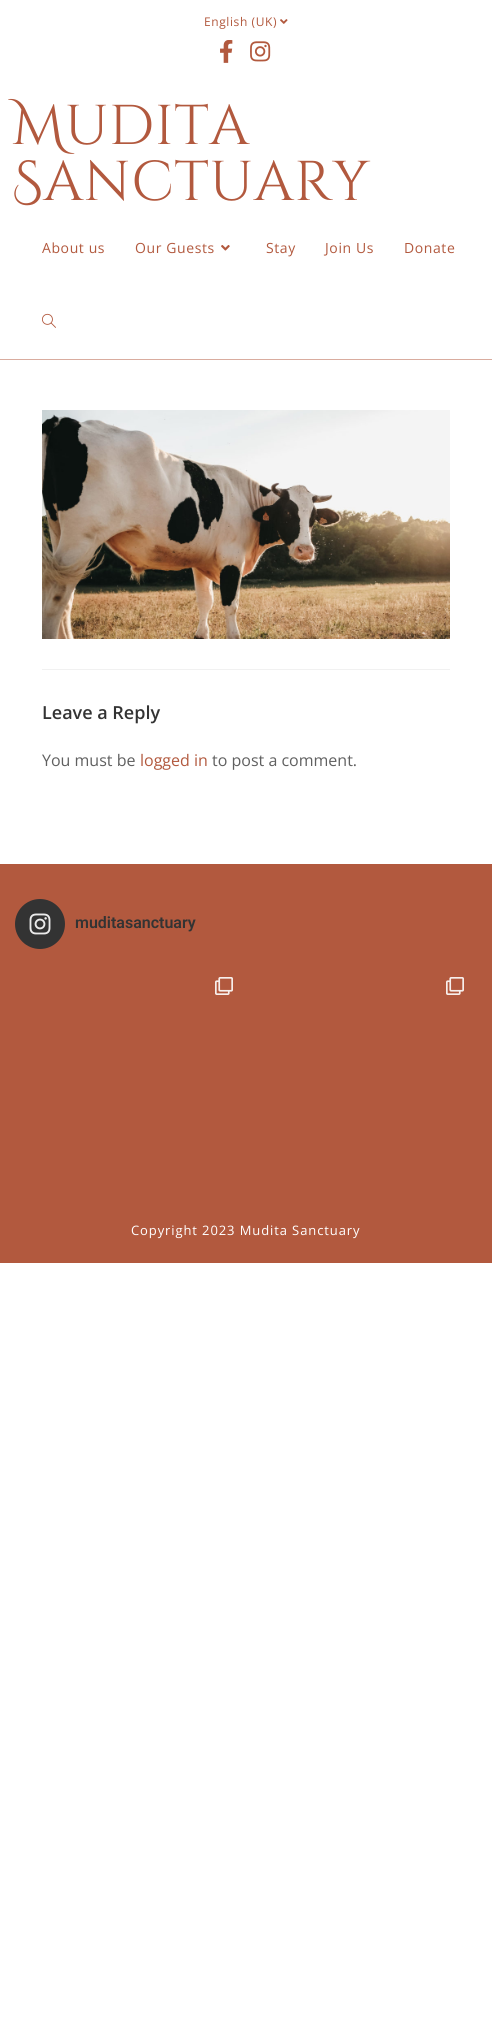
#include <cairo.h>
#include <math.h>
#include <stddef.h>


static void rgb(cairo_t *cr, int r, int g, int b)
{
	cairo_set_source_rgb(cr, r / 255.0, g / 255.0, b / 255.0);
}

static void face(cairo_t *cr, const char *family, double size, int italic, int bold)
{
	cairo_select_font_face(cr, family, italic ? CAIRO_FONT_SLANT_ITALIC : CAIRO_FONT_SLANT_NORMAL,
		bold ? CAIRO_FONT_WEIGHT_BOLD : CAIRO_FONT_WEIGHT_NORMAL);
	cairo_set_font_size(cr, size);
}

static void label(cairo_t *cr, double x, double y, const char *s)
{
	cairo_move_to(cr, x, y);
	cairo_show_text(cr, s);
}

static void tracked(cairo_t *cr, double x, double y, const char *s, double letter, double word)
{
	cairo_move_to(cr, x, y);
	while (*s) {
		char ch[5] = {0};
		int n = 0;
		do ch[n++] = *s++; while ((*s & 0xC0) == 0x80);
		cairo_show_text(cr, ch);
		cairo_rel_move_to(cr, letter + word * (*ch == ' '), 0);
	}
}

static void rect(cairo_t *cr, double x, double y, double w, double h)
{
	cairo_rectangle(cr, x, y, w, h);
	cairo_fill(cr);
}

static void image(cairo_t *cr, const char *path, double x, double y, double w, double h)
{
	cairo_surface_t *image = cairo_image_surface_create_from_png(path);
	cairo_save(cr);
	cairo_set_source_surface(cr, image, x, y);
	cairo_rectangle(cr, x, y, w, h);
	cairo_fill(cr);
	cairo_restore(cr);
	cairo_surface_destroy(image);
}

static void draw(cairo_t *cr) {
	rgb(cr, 255, 255, 255);
	cairo_paint(cr);
	face(cr, "Open Sans", 12, 0, 0);
	rgb(cr, 178, 89, 62);
	tracked(cr, 204, 26, "English (UK)", 0.6, 0);
	image(cr, "image0.png", 280, 19, 8, 5);
	image(cr, "image1.png", 220, 40, 13, 23);
	image(cr, "image2.png", 250, 41, 21, 21);
	rgb(cr, 217, 172, 159);
	rect(cr, 0, 359, 492, 1);
	face(cr, "Cinzel Decorative", 56, 0, 0);
	rgb(cr, 178, 89, 62);
	tracked(cr, 12, 144, "Mudita", 0.5, 0);
	tracked(cr, 12, 200, "Sanctuary", 0.5, 0);
	face(cr, "Open Sans", 14, 0, 0);
	tracked(cr, 42, 253, "About us", 0.6, 0);
	tracked(cr, 135, 253, "Our Guests", 0.6, 0);
	image(cr, "image3.png", 221, 245, 9, 6);
	tracked(cr, 266, 253, "Stay", 0.6, 0);
	tracked(cr, 325, 253, "Join Us", 0.6, 0);
	tracked(cr, 404, 253, "Donate", 0.6, 0);
	image(cr, "image4.png", 42, 313, 14, 15);
	image(cr, "image5.png", 42, 410, 408, 229);
	rgb(cr, 241, 241, 241);
	rect(cr, 42, 669, 408, 1);
	face(cr, "Open Sans SemiBold", 18, 0, 0);
	rgb(cr, 51, 51, 51);
	label(cr, 42, 719, "Leave a Reply");
	face(cr, "Open Sans", 16, 0, 0);
	rgb(cr, 96, 96, 96);
	label(cr, 42, 766, "You must be");
	rgb(cr, 178, 89, 62);
	label(cr, 140, 766, "logged in");
	rgb(cr, 96, 96, 96);
	label(cr, 212, 766, "to post a comment.");
	rgb(cr, 178, 89, 62);
	rect(cr, 0, 864, 492, 399);
	rgb(cr, 51, 51, 51);
	cairo_new_path(cr);
	cairo_arc(cr, 40, 924, 25, 0, 2 * M_PI);
	cairo_fill(cr);
	image(cr, "image6.png", 29, 913, 22, 22);
	face(cr, "Roboto SemiBold", 16, 0, 0);
	label(cr, 75, 928, "muditasanctuary");
	image(cr, "image7.png", 215, 977, 18, 18);
	image(cr, "image7.png", 446, 977, 18, 18);
	face(cr, "Open Sans", 13, 0, 0);
	rgb(cr, 255, 255, 255);
	tracked(cr, 131, 1235, "Copyright 2023 Mudita Sanctuary", 0.9, 0);
}

int main(void) {
	cairo_surface_t *surface = cairo_image_surface_create(CAIRO_FORMAT_RGB24, 492, 2035);
	cairo_t *cr = cairo_create(surface);
	cairo_font_options_t *options = cairo_font_options_create();
	cairo_font_options_set_hint_metrics(options, CAIRO_HINT_METRICS_OFF);
	cairo_font_options_set_hint_style(options, CAIRO_HINT_STYLE_NONE);
	cairo_set_font_options(cr, options);
	cairo_set_miter_limit(cr, 4);
	draw(cr);
	cairo_surface_write_to_png(surface, "render.png");
	cairo_font_options_destroy(options);
	cairo_destroy(cr);
	cairo_surface_destroy(surface);
	return 0;
}
